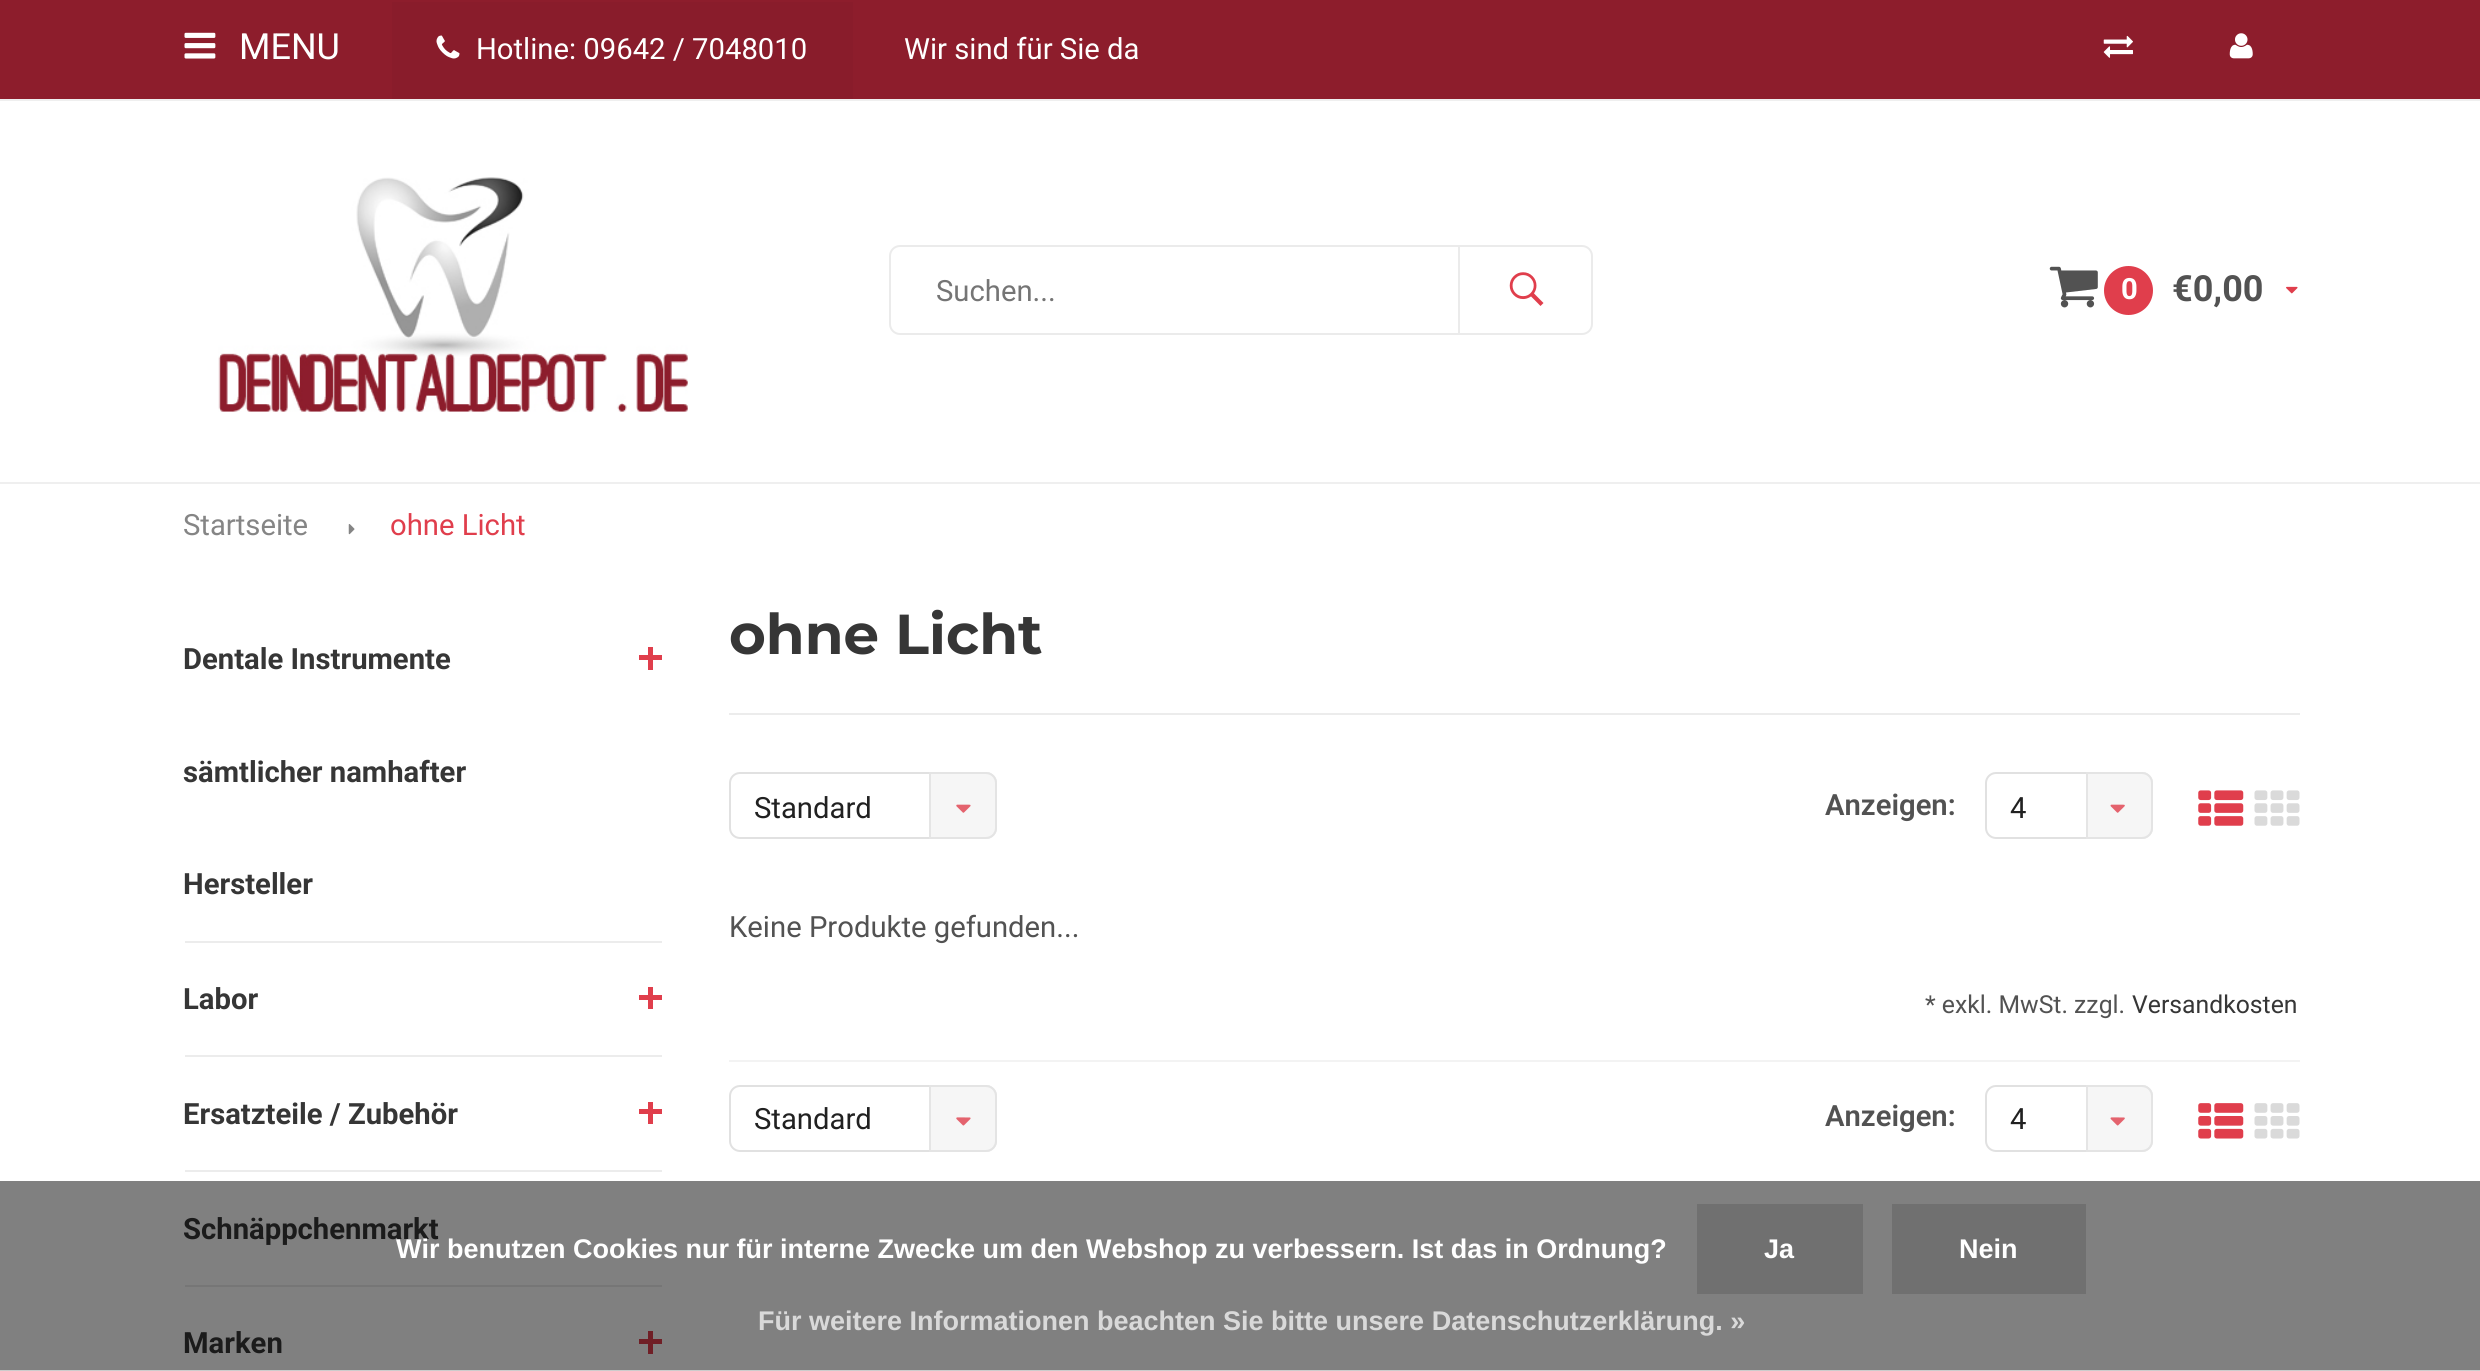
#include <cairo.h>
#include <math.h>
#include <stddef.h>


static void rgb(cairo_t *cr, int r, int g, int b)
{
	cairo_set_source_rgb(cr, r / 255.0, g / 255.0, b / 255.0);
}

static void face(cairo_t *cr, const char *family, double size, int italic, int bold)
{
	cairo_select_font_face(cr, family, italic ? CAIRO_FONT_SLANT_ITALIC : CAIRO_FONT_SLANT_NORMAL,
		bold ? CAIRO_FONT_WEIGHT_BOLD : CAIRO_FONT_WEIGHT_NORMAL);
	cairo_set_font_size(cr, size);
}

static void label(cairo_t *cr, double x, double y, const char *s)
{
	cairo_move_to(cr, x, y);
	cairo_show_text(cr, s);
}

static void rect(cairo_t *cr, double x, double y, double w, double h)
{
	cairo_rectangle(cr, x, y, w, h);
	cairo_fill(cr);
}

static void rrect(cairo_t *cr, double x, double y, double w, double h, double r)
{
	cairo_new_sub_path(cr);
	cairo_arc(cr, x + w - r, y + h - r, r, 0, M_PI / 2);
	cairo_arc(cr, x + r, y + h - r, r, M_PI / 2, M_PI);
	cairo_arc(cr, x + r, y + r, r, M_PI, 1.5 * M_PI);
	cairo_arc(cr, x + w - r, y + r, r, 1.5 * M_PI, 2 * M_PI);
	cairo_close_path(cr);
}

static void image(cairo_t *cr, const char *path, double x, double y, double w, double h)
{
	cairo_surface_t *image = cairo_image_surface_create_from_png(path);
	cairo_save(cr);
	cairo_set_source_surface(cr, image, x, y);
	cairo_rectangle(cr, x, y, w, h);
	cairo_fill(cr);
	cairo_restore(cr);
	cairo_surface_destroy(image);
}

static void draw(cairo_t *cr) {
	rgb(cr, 255, 255, 255);
	cairo_paint(cr);
	rgb(cr, 128, 128, 128);
	rect(cr, 0, 1181, 2480, 189);
	rgb(cr, 141, 29, 44);
	rect(cr, 0, 0, 2480, 99);
	image(cr, "image0.png", 184, 32, 32, 27);
	face(cr, "Roboto", 36, 0, 0);
	rgb(cr, 255, 255, 255);
	label(cr, 239, 59, "MENU");
	rgb(cr, 137, 28, 43);
	rect(cr, 392, 2, 461, 97);
	image(cr, "image1.png", 436, 35, 24, 24);
	face(cr, "Roboto", 29.25, 0, 0);
	rgb(cr, 255, 255, 255);
	label(cr, 476, 59, "Hotline: 09642 / 7048010");
	label(cr, 904, 59, "Wir sind für Sie da");
	image(cr, "image2.png", 2103, 35, 30, 23);
	image(cr, "image3.png", 2229, 33, 24, 26);
	rgb(cr, 239, 239, 239);
	rect(cr, 0, 99, 2480, 2);
	rect(cr, 0, 482, 2480, 2);
	image(cr, "image4.png", 218, 177, 470, 235);
	rrect(cr, 890, 246, 702, 88, 10);
	rgb(cr, 235, 235, 235);
	cairo_stroke(cr);
	rgb(cr, 117, 117, 117);
	label(cr, 936, 301, "Suchen...");
	rgb(cr, 235, 235, 235);
	rect(cr, 1458, 245, 2, 90);
	image(cr, "image5.png", 1509, 272, 35, 34);
	image(cr, "image6.png", 2049, 266, 49, 42);
	rgb(cr, 224, 62, 76);
	cairo_arc(cr, 2128.5, 290.5, 24.5, 0, 2 * M_PI);
	cairo_fill(cr);
	face(cr, "Roboto", 29.25, 0, 1);
	rgb(cr, 255, 255, 255);
	label(cr, 2121, 299, "0");
	face(cr, "Roboto", 36, 0, 1);
	rgb(cr, 82, 82, 82);
	label(cr, 2172, 301, "€0,00");
	image(cr, "image7.png", 2286, 286, 12, 8);
	face(cr, "Roboto", 29.25, 0, 0);
	rgb(cr, 133, 133, 133);
	label(cr, 183, 535, "Startseite");
	image(cr, "image8.png", 348, 524, 7, 11);
	rgb(cr, 224, 62, 76);
	label(cr, 390, 535, "ohne Licht");
	rgb(cr, 236, 236, 236);
	rect(cr, 185, 941, 477, 2);
	face(cr, "Roboto", 29.25, 0, 1);
	rgb(cr, 54, 54, 54);
	label(cr, 183, 669, "Dentale Instrumente");
	label(cr, 183, 782, "sämtlicher namhafter");
	label(cr, 183, 894, "Hersteller");
	rgb(cr, 224, 62, 76);
	rect(cr, 639, 655, 23, 5);
	rect(cr, 648, 647, 5, 23);
	rgb(cr, 236, 236, 236);
	rect(cr, 185, 1055, 477, 2);
	rgb(cr, 54, 54, 54);
	label(cr, 183, 1009, "Labor");
	rgb(cr, 224, 62, 76);
	rect(cr, 639, 995, 23, 5);
	rect(cr, 648, 987, 5, 22);
	rgb(cr, 236, 236, 236);
	rect(cr, 185, 1170, 477, 2);
	rgb(cr, 54, 54, 54);
	label(cr, 183, 1124, "Ersatzteile / Zubehör");
	rgb(cr, 224, 62, 76);
	rect(cr, 639, 1109, 23, 5);
	rect(cr, 648, 1102, 5, 22);
	rgb(cr, 118, 118, 118);
	rect(cr, 185, 1285, 477, 2);
	rgb(cr, 27, 27, 27);
	label(cr, 183, 1239, "Schnäppchenmarkt");
	label(cr, 183, 1353, "Marken");
	rgb(cr, 112, 31, 38);
	rect(cr, 639, 1339, 23, 5);
	rect(cr, 648, 1331, 5, 23);
	rgb(cr, 236, 236, 236);
	rect(cr, 729, 713, 1571, 2);
	face(cr, "Montserrat", 56.25, 0, 1);
	rgb(cr, 54, 54, 54);
	label(cr, 729, 654, "ohne Licht");
	rrect(cr, 730, 773, 266, 65, 10);
	rgb(cr, 225, 225, 225);
	cairo_stroke(cr);
	face(cr, "Roboto", 29.25, 0, 0);
	rgb(cr, 33, 33, 33);
	label(cr, 754, 818, "Standard");
	cairo_set_source_rgba(cr, 0.953, 0.953, 0.953, 0.8);
	cairo_new_path(cr);
	cairo_move_to(cr, 929, 772);
	cairo_line_to(cr, 986, 772);
	cairo_curve_to(cr, 992, 772, 997, 777, 997, 783);
	cairo_line_to(cr, 997, 828);
	cairo_curve_to(cr, 997, 834, 992, 839, 986, 839);
	cairo_line_to(cr, 929, 839);
	cairo_close_path(cr);
	cairo_fill(cr);
	cairo_new_path(cr);
	cairo_move_to(cr, 930, 773);
	cairo_line_to(cr, 986, 773);
	cairo_curve_to(cr, 991.5, 773, 996, 777.5, 996, 783);
	cairo_line_to(cr, 996, 828);
	cairo_curve_to(cr, 996, 833.5, 991.5, 838, 986, 838);
	cairo_line_to(cr, 930, 838);
	cairo_close_path(cr);
	cairo_set_source_rgba(cr, 0.882, 0.882, 0.882, 0.8);
	cairo_stroke(cr);
	image(cr, "image9.png", 956, 804, 15, 9);
	face(cr, "Roboto SemiBold", 29.25, 0, 0);
	rgb(cr, 82, 82, 82);
	label(cr, 1825, 815, "Anzeigen:");
	rrect(cr, 1986, 773, 166, 65, 10);
	rgb(cr, 225, 225, 225);
	cairo_stroke(cr);
	face(cr, "Roboto", 29.25, 0, 0);
	rgb(cr, 33, 33, 33);
	label(cr, 2010, 818, "4");
	cairo_set_source_rgba(cr, 0.953, 0.953, 0.953, 0.8);
	cairo_new_path(cr);
	cairo_move_to(cr, 2086, 772);
	cairo_line_to(cr, 2142, 772);
	cairo_curve_to(cr, 2148, 772, 2153, 777, 2153, 783);
	cairo_line_to(cr, 2153, 828);
	cairo_curve_to(cr, 2153, 834, 2148, 839, 2142, 839);
	cairo_line_to(cr, 2086, 839);
	cairo_close_path(cr);
	cairo_fill(cr);
	cairo_new_path(cr);
	cairo_move_to(cr, 2087, 773);
	cairo_line_to(cr, 2142, 773);
	cairo_curve_to(cr, 2147.5, 773, 2152, 777.5, 2152, 783);
	cairo_line_to(cr, 2152, 828);
	cairo_curve_to(cr, 2152, 833.5, 2147.5, 838, 2142, 838);
	cairo_line_to(cr, 2087, 838);
	cairo_close_path(cr);
	cairo_set_source_rgba(cr, 0.882, 0.882, 0.882, 0.8);
	cairo_stroke(cr);
	image(cr, "image10.png", 2110, 804, 15, 9);
	image(cr, "image11.png", 2198, 790, 46, 36);
	image(cr, "image12.png", 2254, 790, 46, 36);
	rgb(cr, 82, 82, 82);
	label(cr, 729, 937, "Keine Produkte gefunden...");
	face(cr, "Roboto", 24.75, 0, 0);
	label(cr, 1925, 1013, "* exkl. MwSt. zzgl.");
	rgb(cr, 54, 54, 54);
	label(cr, 2132, 1013, "Versandkosten");
	rgb(cr, 243, 243, 243);
	rect(cr, 729, 1060, 1571, 2);
	rrect(cr, 730, 1086, 266, 65, 10);
	rgb(cr, 225, 225, 225);
	cairo_stroke(cr);
	face(cr, "Roboto", 29.25, 0, 0);
	rgb(cr, 33, 33, 33);
	label(cr, 754, 1129, "Standard");
	cairo_set_source_rgba(cr, 0.953, 0.953, 0.953, 0.8);
	cairo_new_path(cr);
	cairo_move_to(cr, 929, 1085);
	cairo_line_to(cr, 986, 1085);
	cairo_curve_to(cr, 992, 1085, 997, 1090, 997, 1096);
	cairo_line_to(cr, 997, 1141);
	cairo_curve_to(cr, 997, 1147, 992, 1152, 986, 1152);
	cairo_line_to(cr, 929, 1152);
	cairo_close_path(cr);
	cairo_fill(cr);
	cairo_new_path(cr);
	cairo_move_to(cr, 930, 1086);
	cairo_line_to(cr, 986, 1086);
	cairo_curve_to(cr, 991.5, 1086, 996, 1090.5, 996, 1096);
	cairo_line_to(cr, 996, 1141);
	cairo_curve_to(cr, 996, 1146.5, 991.5, 1151, 986, 1151);
	cairo_line_to(cr, 930, 1151);
	cairo_close_path(cr);
	cairo_set_source_rgba(cr, 0.882, 0.882, 0.882, 0.8);
	cairo_stroke(cr);
	image(cr, "image13.png", 956, 1117, 15, 9);
	face(cr, "Roboto SemiBold", 29.25, 0, 0);
	rgb(cr, 82, 82, 82);
	label(cr, 1825, 1126, "Anzeigen:");
	rrect(cr, 1986, 1086, 166, 65, 10);
	rgb(cr, 225, 225, 225);
	cairo_stroke(cr);
	face(cr, "Roboto", 29.25, 0, 0);
	rgb(cr, 33, 33, 33);
	label(cr, 2010, 1129, "4");
	cairo_set_source_rgba(cr, 0.953, 0.953, 0.953, 0.8);
	cairo_new_path(cr);
	cairo_move_to(cr, 2086, 1085);
	cairo_line_to(cr, 2142, 1085);
	cairo_curve_to(cr, 2148, 1085, 2153, 1090, 2153, 1096);
	cairo_line_to(cr, 2153, 1141);
	cairo_curve_to(cr, 2153, 1147, 2148, 1152, 2142, 1152);
	cairo_line_to(cr, 2086, 1152);
	cairo_close_path(cr);
	cairo_fill(cr);
	cairo_new_path(cr);
	cairo_move_to(cr, 2087, 1086);
	cairo_line_to(cr, 2142, 1086);
	cairo_curve_to(cr, 2147.5, 1086, 2152, 1090.5, 2152, 1096);
	cairo_line_to(cr, 2152, 1141);
	cairo_curve_to(cr, 2152, 1146.5, 2147.5, 1151, 2142, 1151);
	cairo_line_to(cr, 2087, 1151);
	cairo_close_path(cr);
	cairo_set_source_rgba(cr, 0.882, 0.882, 0.882, 0.8);
	cairo_stroke(cr);
	image(cr, "image14.png", 2110, 1117, 15, 9);
	image(cr, "image15.png", 2198, 1103, 46, 36);
	image(cr, "image16.png", 2254, 1103, 46, 36);
	rgb(cr, 204, 204, 204);
	rect(cr, 0, 1370, 2480, 1);
	face(cr, "Liberation Sans", 27, 0, 1);
	rgb(cr, 255, 255, 255);
	label(cr, 396, 1258, "Wir benutzen Cookies nur für interne Zwecke um den Webshop zu verbessern. Ist das in Ordnung?");
	rgb(cr, 112, 112, 112);
	rect(cr, 1697, 1204, 166, 90);
	rgb(cr, 255, 255, 255);
	label(cr, 1764, 1258, "Ja");
	rgb(cr, 112, 112, 112);
	rect(cr, 1892, 1204, 194, 90);
	rgb(cr, 255, 255, 255);
	label(cr, 1959, 1258, "Nein");
	rgb(cr, 217, 217, 217);
	label(cr, 758, 1330, "Für weitere Informationen beachten Sie bitte unsere Datenschutzerklärung. »");
}

int main(void) {
	cairo_surface_t *surface = cairo_image_surface_create(CAIRO_FORMAT_RGB24, 2480, 1371);
	cairo_t *cr = cairo_create(surface);
	cairo_font_options_t *options = cairo_font_options_create();
	cairo_font_options_set_hint_metrics(options, CAIRO_HINT_METRICS_OFF);
	cairo_font_options_set_hint_style(options, CAIRO_HINT_STYLE_NONE);
	cairo_set_font_options(cr, options);
	cairo_set_miter_limit(cr, 4);
	draw(cr);
	cairo_surface_write_to_png(surface, "render.png");
	cairo_font_options_destroy(options);
	cairo_destroy(cr);
	cairo_surface_destroy(surface);
	return 0;
}
